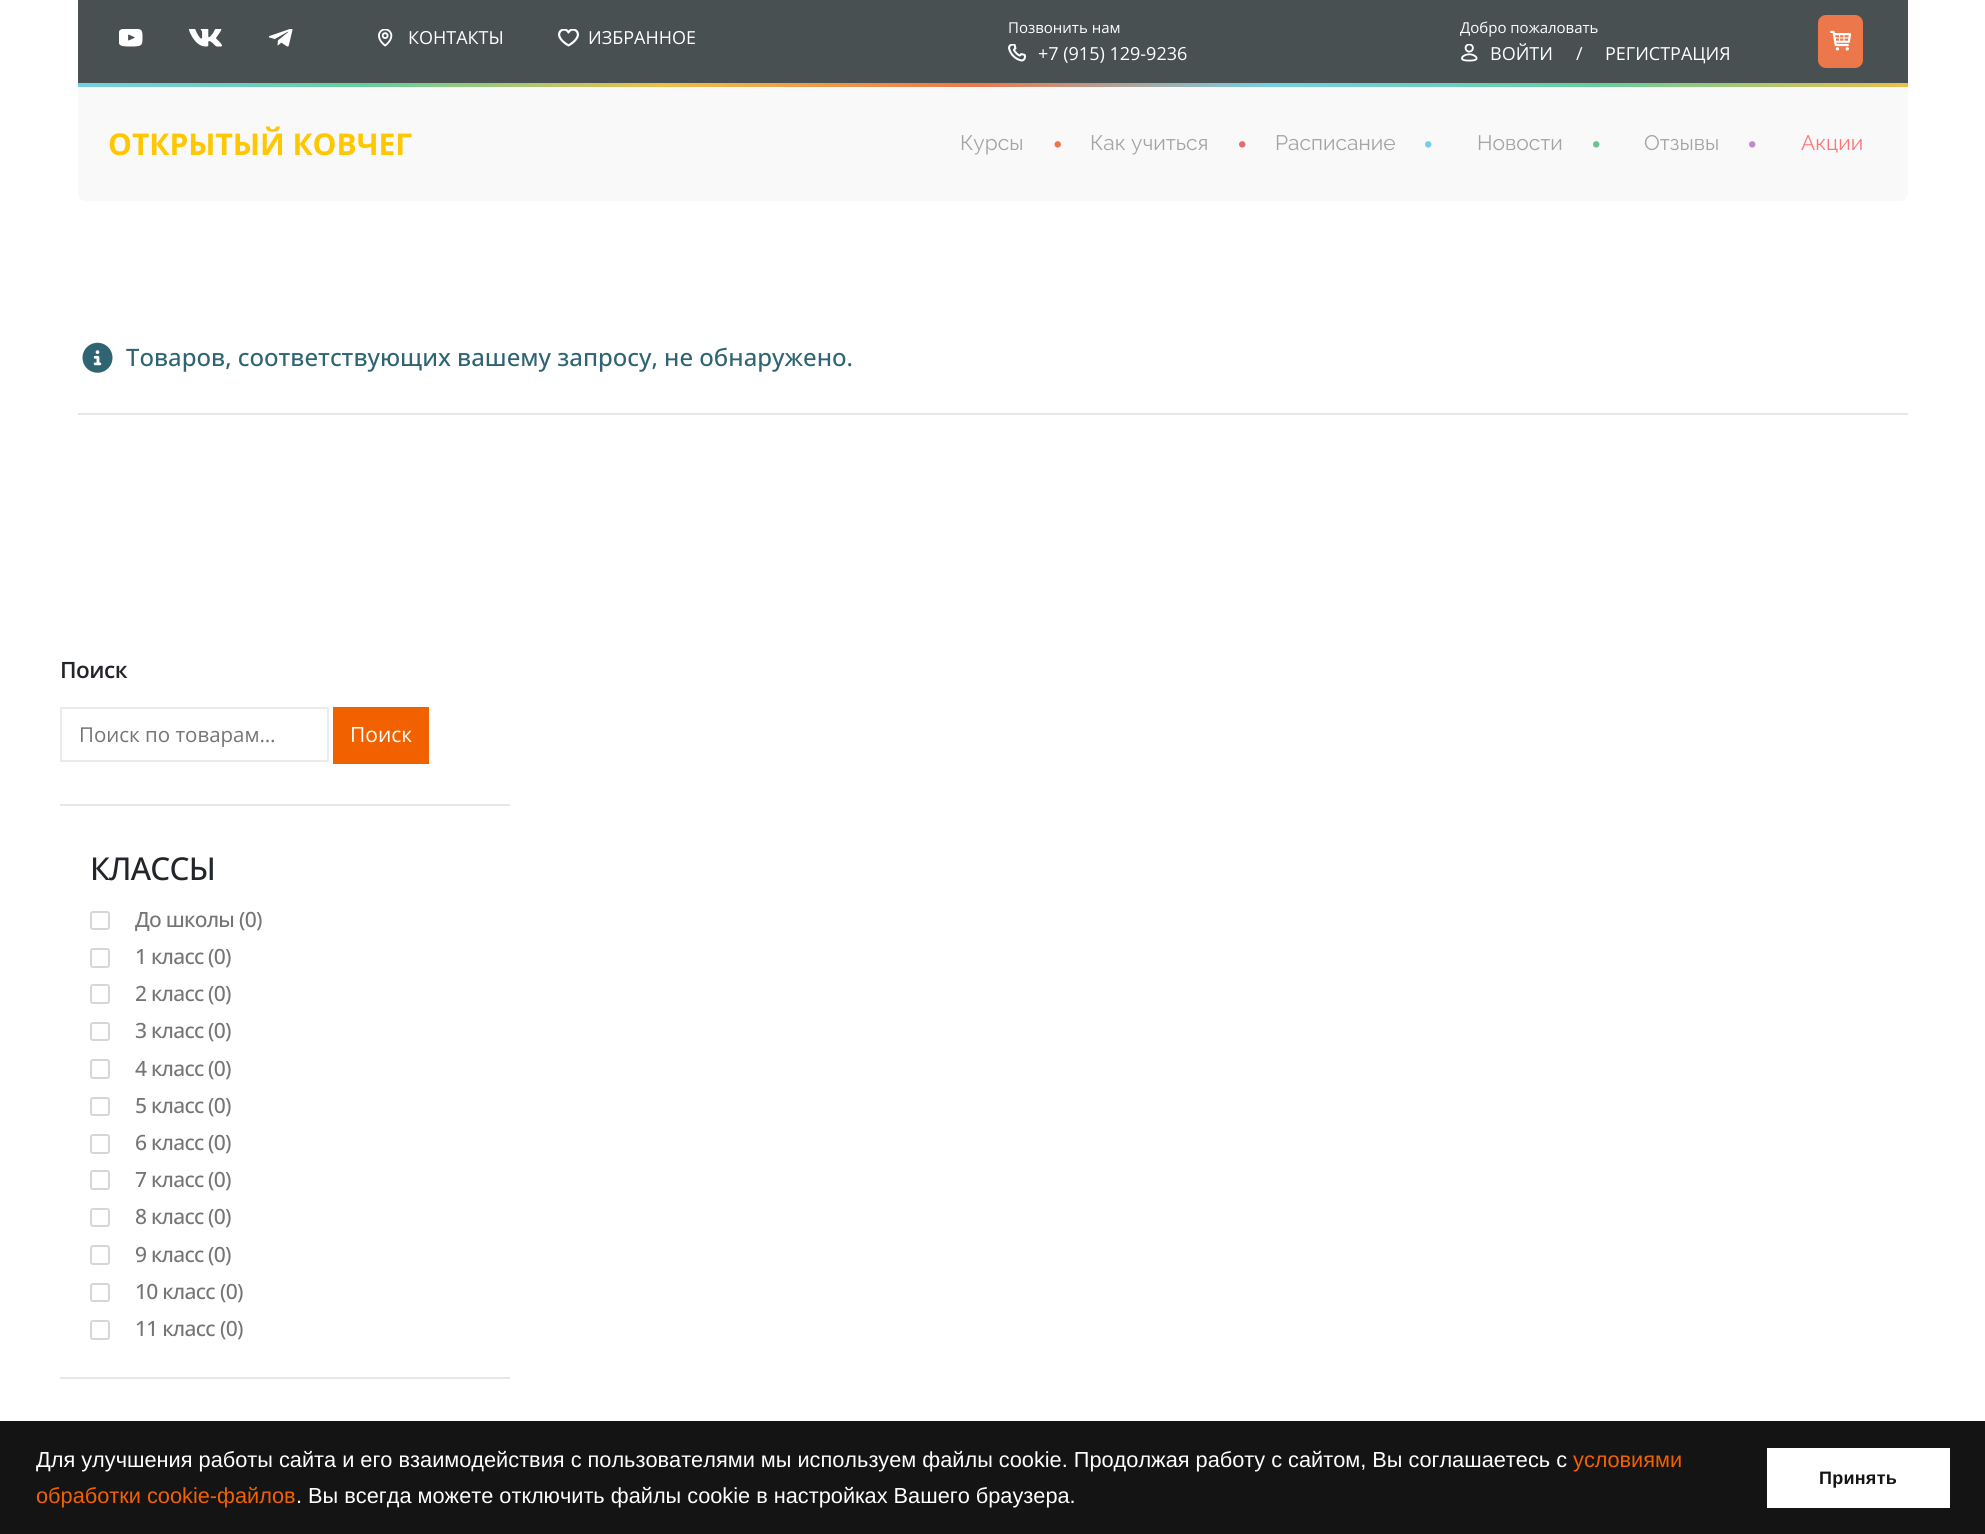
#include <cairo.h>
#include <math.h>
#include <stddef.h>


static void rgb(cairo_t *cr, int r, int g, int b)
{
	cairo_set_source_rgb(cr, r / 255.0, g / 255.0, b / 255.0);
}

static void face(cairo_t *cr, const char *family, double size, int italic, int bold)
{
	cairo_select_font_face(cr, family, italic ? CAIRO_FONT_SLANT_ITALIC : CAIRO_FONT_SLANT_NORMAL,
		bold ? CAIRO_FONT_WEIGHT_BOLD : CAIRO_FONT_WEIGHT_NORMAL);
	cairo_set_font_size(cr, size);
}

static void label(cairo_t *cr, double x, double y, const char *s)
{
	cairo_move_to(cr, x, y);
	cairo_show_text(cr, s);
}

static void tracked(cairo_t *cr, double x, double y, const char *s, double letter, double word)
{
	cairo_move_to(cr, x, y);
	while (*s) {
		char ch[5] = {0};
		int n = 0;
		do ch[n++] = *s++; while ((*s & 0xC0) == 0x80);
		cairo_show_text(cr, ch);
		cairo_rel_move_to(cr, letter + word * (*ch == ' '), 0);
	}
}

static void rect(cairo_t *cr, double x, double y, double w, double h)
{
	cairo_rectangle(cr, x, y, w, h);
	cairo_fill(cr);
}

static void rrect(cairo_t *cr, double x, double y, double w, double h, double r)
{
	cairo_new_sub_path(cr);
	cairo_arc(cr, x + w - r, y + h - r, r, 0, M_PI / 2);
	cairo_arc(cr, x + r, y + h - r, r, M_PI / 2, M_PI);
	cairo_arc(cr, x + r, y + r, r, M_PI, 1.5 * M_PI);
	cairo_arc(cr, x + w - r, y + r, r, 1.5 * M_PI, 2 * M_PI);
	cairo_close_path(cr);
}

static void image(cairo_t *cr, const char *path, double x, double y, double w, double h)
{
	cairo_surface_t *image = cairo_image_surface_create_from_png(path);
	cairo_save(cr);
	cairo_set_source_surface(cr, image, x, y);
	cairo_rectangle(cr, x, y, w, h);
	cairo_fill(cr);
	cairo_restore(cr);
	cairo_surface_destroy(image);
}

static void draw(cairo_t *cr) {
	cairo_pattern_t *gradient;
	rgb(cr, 255, 255, 255);
	cairo_paint(cr);
	rgb(cr, 73, 80, 82);
	rect(cr, 78, 0, 1830, 83);
	image(cr, "image0.png", 119, 29, 24, 18);
	image(cr, "image1.png", 189, 29, 33, 18);
	image(cr, "image2.png", 269, 29, 24, 18);
	image(cr, "image3.png", 378, 29, 15, 18);
	face(cr, "Open Sans", 18, 0, 0);
	rgb(cr, 255, 255, 255);
	label(cr, 408, 44, "КОНТАКТЫ");
	image(cr, "image4.png", 558, 29, 21, 18);
	label(cr, 588, 44, "ИЗБРАННОЕ");
	face(cr, "Open Sans", 15, 0, 0);
	label(cr, 1008, 33, "Позвонить нам");
	image(cr, "image5.png", 1008, 44, 18, 18);
	face(cr, "Open Sans", 18, 0, 0);
	label(cr, 1038, 60, "+7 (915) 129-9236");
	face(cr, "Open Sans", 15, 0, 0);
	label(cr, 1460, 33, "Добро пожаловать");
	image(cr, "image6.png", 1461, 44, 17, 18);
	face(cr, "Open Sans", 18, 0, 0);
	label(cr, 1490, 60, "ВОЙТИ");
	label(cr, 1576, 60, "/");
	label(cr, 1605, 60, "РЕГИСТРАЦИЯ");
	rgb(cr, 236, 119, 75);
	rrect(cr, 1818, 15, 45, 53, 8);
	cairo_fill(cr);
	image(cr, "image7.png", 1830, 30, 22, 21);
	gradient = cairo_pattern_create_linear(78, 85, 1908, 85);
	cairo_pattern_add_color_stop_rgba(gradient, 0, 0.455, 0.808, 0.894, 1);
	cairo_pattern_add_color_stop_rgba(gradient, 0.16, 0.4, 0.808, 0.612, 1);
	cairo_pattern_add_color_stop_rgba(gradient, 0.32, 0.929, 0.749, 0.278, 1);
	cairo_pattern_add_color_stop_rgba(gradient, 0.49, 0.925, 0.467, 0.294, 1);
	cairo_pattern_add_color_stop_rgba(gradient, 0.65, 0.455, 0.808, 0.894, 1);
	cairo_pattern_add_color_stop_rgba(gradient, 0.83, 0.4, 0.808, 0.612, 1);
	cairo_pattern_add_color_stop_rgba(gradient, 1, 0.929, 0.749, 0.278, 1);
	cairo_set_source(cr, gradient);
	cairo_pattern_destroy(gradient);
	rect(cr, 78, 83, 1830, 4);
	rgb(cr, 249, 249, 249);
	cairo_new_path(cr);
	cairo_move_to(cr, 78, 87);
	cairo_line_to(cr, 1908, 87);
	cairo_line_to(cr, 1908, 193);
	cairo_curve_to(cr, 1908, 197.5, 1904.5, 201, 1900, 201);
	cairo_line_to(cr, 86, 201);
	cairo_curve_to(cr, 81.5, 201, 78, 197.5, 78, 193);
	cairo_close_path(cr);
	cairo_fill(cr);
	face(cr, "Open Sans", 30, 0, 1);
	rgb(cr, 255, 199, 0);
	label(cr, 108, 155, "ОТКРЫТЫЙ КОВЧЕГ");
	face(cr, "Raleway", 21, 0, 0);
	rgb(cr, 164, 164, 164);
	label(cr, 960, 150, "Курсы");
	image(cr, "image8.png", 1054, 141, 7, 7);
	label(cr, 1090, 150, "Как учиться");
	image(cr, "image9.png", 1239, 141, 7, 7);
	label(cr, 1275, 150, "Расписание");
	image(cr, "image10.png", 1425, 141, 7, 7);
	label(cr, 1477, 150, "Новости");
	image(cr, "image11.png", 1593, 141, 7, 7);
	label(cr, 1644, 150, "Отзывы");
	image(cr, "image12.png", 1749, 141, 7, 7);
	rgb(cr, 255, 118, 118);
	label(cr, 1801, 150, "Акции");
	image(cr, "image13.png", 82, 342, 31, 31);
	face(cr, "Open Sans Medium", 24, 0, 0);
	rgb(cr, 47, 100, 115);
	label(cr, 126, 366, "Товаров, соответствующих вашему запросу, не обнаружено.");
	rgb(cr, 231, 231, 231);
	rect(cr, 78, 413, 1830, 2);
	rect(cr, 60, 804, 450, 2);
	face(cr, "Open Sans SemiBold", 22.5, 0, 0);
	rgb(cr, 34, 37, 41);
	tracked(cr, 60, 678, "Поиск", -0.5, 0);
	cairo_rectangle(cr, 61, 708, 267, 53);
	rgb(cr, 235, 235, 235);
	cairo_stroke(cr);
	face(cr, "Open Sans", 20.5, 0, 0);
	rgb(cr, 117, 117, 117);
	label(cr, 79, 742, "Поиск по товарам…");
	rgb(cr, 242, 97, 0);
	rect(cr, 333, 707, 96, 57);
	face(cr, "Open Sans", 21, 0, 0);
	rgb(cr, 255, 255, 255);
	label(cr, 350, 742, "Поиск");
	rgb(cr, 231, 231, 231);
	rect(cr, 60, 1377, 450, 2);
	face(cr, "Open Sans Medium", 31.5, 0, 0);
	rgb(cr, 34, 37, 41);
	tracked(cr, 90, 880, "КЛАССЫ", -0.75, 0);
	rrect(cr, 91, 912, 18, 17, 2);
	rgb(cr, 214, 214, 214);
	cairo_stroke(cr);
	face(cr, "Open Sans Medium", 21, 0, 0);
	rgb(cr, 117, 117, 117);
	tracked(cr, 135, 927, "До школы", -0.75, 0);
	tracked(cr, 239, 927, "(0)", -0.75, 0);
	rrect(cr, 91, 949, 18, 18, 2);
	rgb(cr, 214, 214, 214);
	cairo_stroke(cr);
	rgb(cr, 117, 117, 117);
	tracked(cr, 135, 964, "1 класс", -0.75, 0);
	tracked(cr, 208, 964, "(0)", -0.75, 0);
	rrect(cr, 91, 985, 18, 18, 2);
	rgb(cr, 214, 214, 214);
	cairo_stroke(cr);
	rgb(cr, 117, 117, 117);
	tracked(cr, 135, 1001, "2 класс", -0.75, 0);
	tracked(cr, 208, 1001, "(0)", -0.75, 0);
	rrect(cr, 91, 1023, 18, 17, 2);
	rgb(cr, 214, 214, 214);
	cairo_stroke(cr);
	rgb(cr, 117, 117, 117);
	tracked(cr, 135, 1038, "3 класс", -0.75, 0);
	tracked(cr, 208, 1038, "(0)", -0.75, 0);
	rrect(cr, 91, 1060, 18, 18, 2);
	rgb(cr, 214, 214, 214);
	cairo_stroke(cr);
	rgb(cr, 117, 117, 117);
	tracked(cr, 135, 1076, "4 класс", -0.75, 0);
	tracked(cr, 208, 1076, "(0)", -0.75, 0);
	rrect(cr, 91, 1098, 18, 17, 2);
	rgb(cr, 214, 214, 214);
	cairo_stroke(cr);
	rgb(cr, 117, 117, 117);
	tracked(cr, 135, 1113, "5 класс", -0.75, 0);
	tracked(cr, 208, 1113, "(0)", -0.75, 0);
	rrect(cr, 91, 1135, 18, 18, 2);
	rgb(cr, 214, 214, 214);
	cairo_stroke(cr);
	rgb(cr, 117, 117, 117);
	tracked(cr, 135, 1150, "6 класс", -0.75, 0);
	tracked(cr, 208, 1150, "(0)", -0.75, 0);
	rrect(cr, 91, 1171, 18, 18, 2);
	rgb(cr, 214, 214, 214);
	cairo_stroke(cr);
	rgb(cr, 117, 117, 117);
	tracked(cr, 135, 1187, "7 класс", -0.75, 0);
	tracked(cr, 208, 1187, "(0)", -0.75, 0);
	rrect(cr, 91, 1209, 18, 17, 2);
	rgb(cr, 214, 214, 214);
	cairo_stroke(cr);
	rgb(cr, 117, 117, 117);
	tracked(cr, 135, 1224, "8 класс", -0.75, 0);
	tracked(cr, 208, 1224, "(0)", -0.75, 0);
	rrect(cr, 91, 1246, 18, 18, 2);
	rgb(cr, 214, 214, 214);
	cairo_stroke(cr);
	rgb(cr, 117, 117, 117);
	tracked(cr, 135, 1262, "9 класс", -0.75, 0);
	tracked(cr, 208, 1262, "(0)", -0.75, 0);
	rrect(cr, 91, 1284, 18, 17, 2);
	rgb(cr, 214, 214, 214);
	cairo_stroke(cr);
	rgb(cr, 117, 117, 117);
	tracked(cr, 135, 1299, "10 класс", -0.75, 0);
	tracked(cr, 220, 1299, "(0)", -0.75, 0);
	rrect(cr, 91, 1321, 18, 18, 2);
	rgb(cr, 214, 214, 214);
	cairo_stroke(cr);
	rgb(cr, 117, 117, 117);
	tracked(cr, 135, 1336, "11 класс", -0.75, 0);
	tracked(cr, 220, 1336, "(0)", -0.75, 0);
	rgb(cr, 20, 20, 20);
	rect(cr, 0, 1421, 1985, 113);
	face(cr, "Liberation Sans", 21.75, 0, 0);
	rgb(cr, 255, 255, 255);
	label(cr, 36, 1467, "Для улучшения работы сайта и его взаимодействия с пользователями мы используем файлы cookie. Продолжая работу с сайтом, Вы соглашаетесь с");
	rgb(cr, 242, 97, 0);
	label(cr, 1573, 1467, "условиями");
	label(cr, 36, 1503, "обработки cookie-файлов");
	rgb(cr, 255, 255, 255);
	label(cr, 296, 1503, ". Вы всегда можете отключить файлы cookie в настройках Вашего браузера.");
	rect(cr, 1767, 1448, 183, 60);
	face(cr, "Liberation Sans", 18, 0, 1);
	rgb(cr, 20, 20, 20);
	tracked(cr, 1819, 1484, "Принять", 0.25, 0);
}

int main(void) {
	cairo_surface_t *surface = cairo_image_surface_create(CAIRO_FORMAT_RGB24, 1985, 1534);
	cairo_t *cr = cairo_create(surface);
	cairo_font_options_t *options = cairo_font_options_create();
	cairo_font_options_set_hint_metrics(options, CAIRO_HINT_METRICS_OFF);
	cairo_font_options_set_hint_style(options, CAIRO_HINT_STYLE_NONE);
	cairo_set_font_options(cr, options);
	cairo_set_miter_limit(cr, 4);
	draw(cr);
	cairo_surface_write_to_png(surface, "render.png");
	cairo_font_options_destroy(options);
	cairo_destroy(cr);
	cairo_surface_destroy(surface);
	return 0;
}
